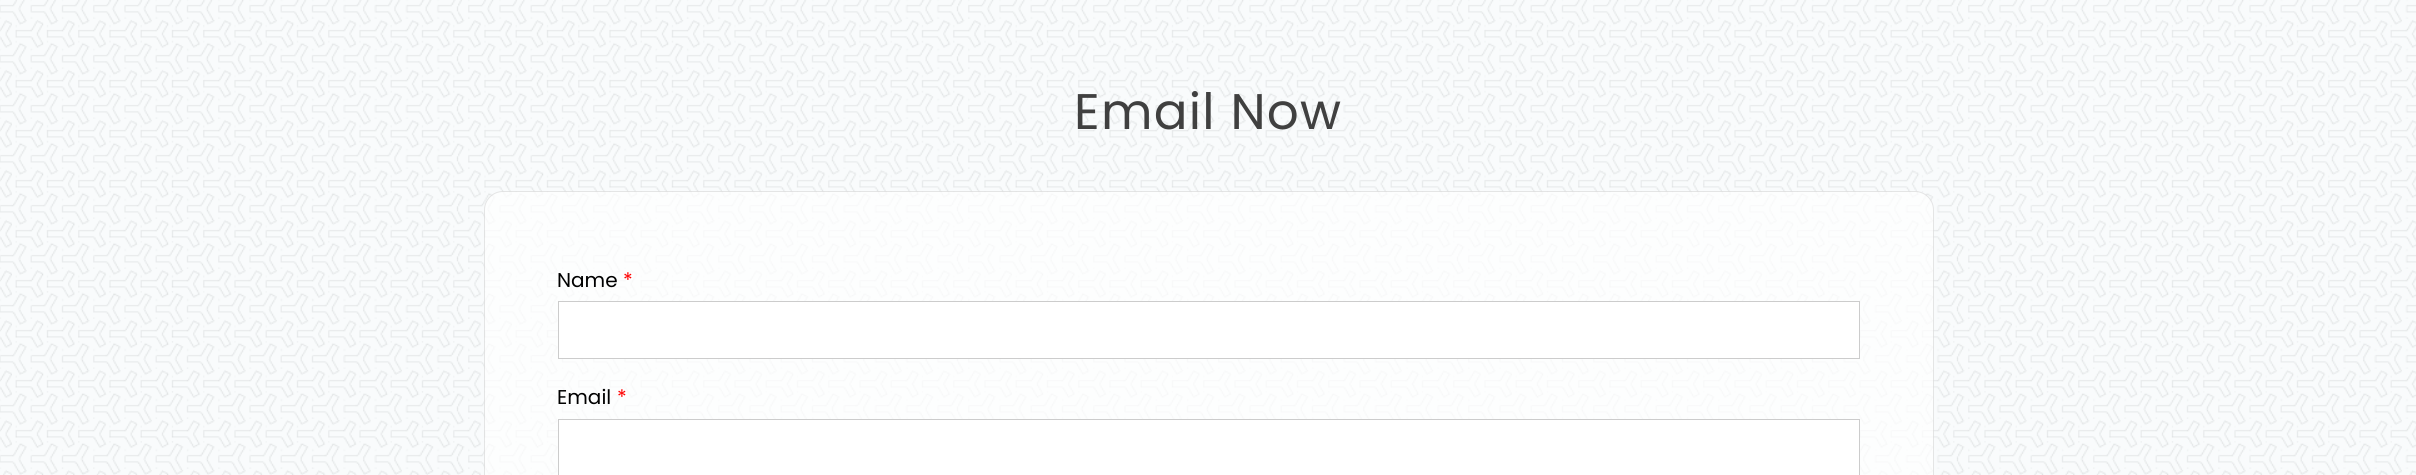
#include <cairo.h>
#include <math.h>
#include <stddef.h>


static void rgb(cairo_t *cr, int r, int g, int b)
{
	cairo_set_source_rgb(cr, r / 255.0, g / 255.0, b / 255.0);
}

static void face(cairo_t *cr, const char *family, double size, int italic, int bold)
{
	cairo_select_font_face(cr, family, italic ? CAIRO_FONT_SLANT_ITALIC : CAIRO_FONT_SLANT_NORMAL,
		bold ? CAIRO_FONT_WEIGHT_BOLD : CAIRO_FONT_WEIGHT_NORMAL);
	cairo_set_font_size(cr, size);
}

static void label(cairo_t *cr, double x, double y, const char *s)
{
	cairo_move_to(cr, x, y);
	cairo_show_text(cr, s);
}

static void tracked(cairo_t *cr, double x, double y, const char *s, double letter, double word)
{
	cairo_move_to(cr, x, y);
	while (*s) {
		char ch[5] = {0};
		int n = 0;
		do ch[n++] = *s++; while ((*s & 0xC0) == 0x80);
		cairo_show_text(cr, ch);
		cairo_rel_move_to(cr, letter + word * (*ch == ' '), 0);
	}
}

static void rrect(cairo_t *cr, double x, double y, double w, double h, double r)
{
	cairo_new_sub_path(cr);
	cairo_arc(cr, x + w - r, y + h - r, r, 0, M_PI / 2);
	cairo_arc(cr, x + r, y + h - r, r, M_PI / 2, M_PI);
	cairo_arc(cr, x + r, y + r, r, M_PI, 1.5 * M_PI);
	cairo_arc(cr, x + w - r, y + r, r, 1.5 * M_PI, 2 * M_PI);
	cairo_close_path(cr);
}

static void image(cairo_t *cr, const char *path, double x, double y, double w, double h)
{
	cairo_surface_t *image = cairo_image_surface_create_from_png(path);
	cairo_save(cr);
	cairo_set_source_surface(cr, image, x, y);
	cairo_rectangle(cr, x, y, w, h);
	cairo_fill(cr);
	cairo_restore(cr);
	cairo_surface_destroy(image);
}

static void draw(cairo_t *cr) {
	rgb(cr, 255, 255, 255);
	cairo_paint(cr);
	image(cr, "image0.png", 0, 0, 2416, 475);
	face(cr, "Poppins", 50, 0, 0);
	rgb(cr, 64, 64, 64);
	tracked(cr, 1074, 129, "Email Now", 1.25, 0);
	cairo_set_source_rgba(cr, 1, 1, 1, 0.7);
	rrect(cr, 484, 191, 1450, 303, 19);
	cairo_fill(cr);
	rrect(cr, 484.5, 191.5, 1449, 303, 18.5);
	cairo_set_source_rgba(cr, 0, 0, 0, 0.1);
	cairo_set_line_width(cr, 1);
	cairo_stroke(cr);
	face(cr, "Poppins", 20, 0, 0);
	rgb(cr, 0, 0, 0);
	label(cr, 557, 287, "Name");
	rgb(cr, 255, 0, 0);
	label(cr, 623, 287, "*");
	rgb(cr, 255, 255, 255);
	cairo_rectangle(cr, 558.5, 301.5, 1301, 57);
	cairo_fill_preserve(cr);
	rgb(cr, 204, 204, 204);
	cairo_stroke(cr);
	rgb(cr, 0, 0, 0);
	label(cr, 557, 404, "Email");
	rgb(cr, 255, 0, 0);
	label(cr, 617, 404, "*");
	rgb(cr, 255, 255, 255);
	cairo_rectangle(cr, 558.5, 419.5, 1301, 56);
	cairo_fill_preserve(cr);
	rgb(cr, 204, 204, 204);
	cairo_stroke(cr);
}

int main(void) {
	cairo_surface_t *surface = cairo_image_surface_create(CAIRO_FORMAT_RGB24, 2416, 475);
	cairo_t *cr = cairo_create(surface);
	cairo_font_options_t *options = cairo_font_options_create();
	cairo_font_options_set_hint_metrics(options, CAIRO_HINT_METRICS_OFF);
	cairo_font_options_set_hint_style(options, CAIRO_HINT_STYLE_NONE);
	cairo_set_font_options(cr, options);
	cairo_set_miter_limit(cr, 4);
	draw(cr);
	cairo_surface_write_to_png(surface, "render.png");
	cairo_font_options_destroy(options);
	cairo_destroy(cr);
	cairo_surface_destroy(surface);
	return 0;
}
